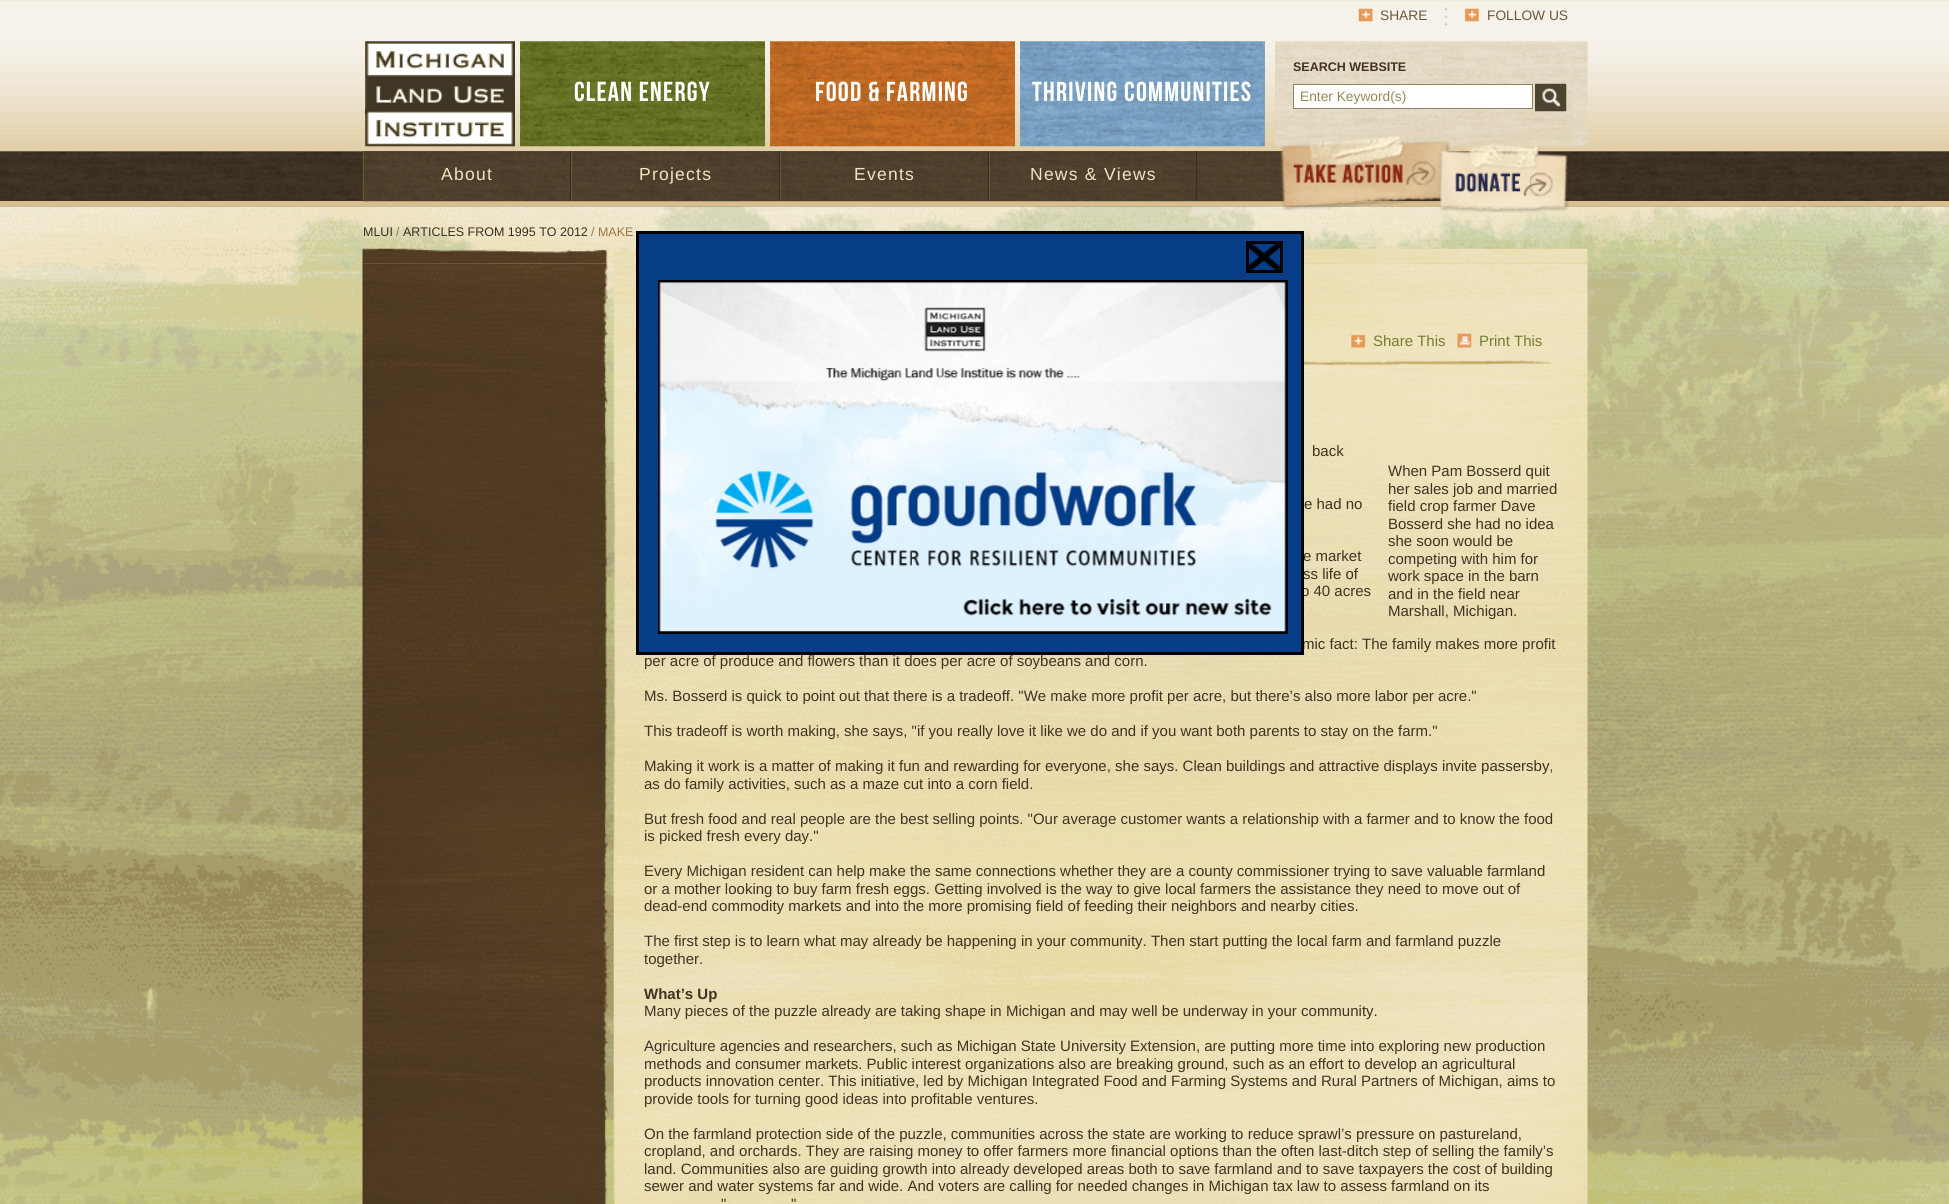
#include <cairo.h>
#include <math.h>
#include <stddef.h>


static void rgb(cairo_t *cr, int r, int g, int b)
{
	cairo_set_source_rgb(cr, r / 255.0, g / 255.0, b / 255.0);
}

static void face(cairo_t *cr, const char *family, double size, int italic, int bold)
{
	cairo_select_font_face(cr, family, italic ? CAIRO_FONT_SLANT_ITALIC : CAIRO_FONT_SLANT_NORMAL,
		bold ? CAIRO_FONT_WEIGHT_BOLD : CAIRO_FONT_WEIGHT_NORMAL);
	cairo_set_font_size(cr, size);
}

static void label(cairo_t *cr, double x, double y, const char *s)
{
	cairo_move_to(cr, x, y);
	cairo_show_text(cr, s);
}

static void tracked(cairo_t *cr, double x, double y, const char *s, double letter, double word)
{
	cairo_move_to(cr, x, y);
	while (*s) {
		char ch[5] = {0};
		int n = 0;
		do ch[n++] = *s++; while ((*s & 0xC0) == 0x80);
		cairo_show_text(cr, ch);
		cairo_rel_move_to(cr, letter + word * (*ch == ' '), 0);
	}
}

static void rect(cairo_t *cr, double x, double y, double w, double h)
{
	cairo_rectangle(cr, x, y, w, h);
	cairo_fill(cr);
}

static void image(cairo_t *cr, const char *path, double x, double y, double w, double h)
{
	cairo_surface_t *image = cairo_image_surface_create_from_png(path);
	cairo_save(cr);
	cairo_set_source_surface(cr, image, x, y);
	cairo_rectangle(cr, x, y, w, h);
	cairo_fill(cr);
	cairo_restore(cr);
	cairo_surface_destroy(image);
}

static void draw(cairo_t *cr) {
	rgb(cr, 255, 255, 255);
	cairo_paint(cr);
	image(cr, "image0.png", 0, 151, 1949, 1053);
	image(cr, "image1.png", 0, 0, 1949, 152);
	image(cr, "image2.png", 1444, 7, 4, 19);
	image(cr, "image3.png", 1358, 8, 15, 14);
	face(cr, "Liberation Sans", 13.75, 0, 0);
	rgb(cr, 108, 88, 60);
	label(cr, 1380, 20, "SHARE");
	image(cr, "image4.png", 1464, 8, 15, 14);
	label(cr, 1487, 20, "FOLLOW US");
	image(cr, "image5.png", 365, 41, 150, 106);
	image(cr, "image6.png", 520, 41, 245, 106);
	face(cr, "Bebas Neue", 27.5, 0, 0);
	rgb(cr, 255, 255, 255);
	tracked(cr, 574, 101, "CLEAN ENERGY", 1.25, 0);
	image(cr, "image7.png", 770, 41, 245, 106);
	tracked(cr, 815, 101, "FOOD & FARMING", 1.25, 0);
	image(cr, "image8.png", 1020, 41, 245, 106);
	tracked(cr, 1032, 101, "THRIVING COMMUNITIES", 1.25, 0);
	image(cr, "image9.png", 1275, 41, 313, 106);
	face(cr, "Liberation Sans", 12.5, 0, 1);
	rgb(cr, 65, 50, 34);
	label(cr, 1293, 71, "SEARCH WEBSITE");
	rgb(cr, 255, 255, 255);
	cairo_rectangle(cr, 1293.5, 84.5, 239, 24);
	cairo_fill_preserve(cr);
	rgb(cr, 141, 131, 98);
	cairo_set_line_width(cr, 1);
	cairo_stroke(cr);
	face(cr, "Liberation Sans", 13.75, 0, 0);
	rgb(cr, 152, 135, 83);
	label(cr, 1300, 101, "Enter Keyword(s)");
	image(cr, "image10.png", 1535, 83, 32, 29);
	image(cr, "image11.png", 0, 151, 1949, 56);
	rgb(cr, 217, 191, 143);
	rect(cr, 0, 201, 1949, 5);
	image(cr, "image12.png", 362, 151, 1001, 51);
	rgb(cr, 56, 44, 31);
	rect(cr, 570, 151, 1, 50);
	rgb(cr, 101, 85, 62);
	rect(cr, 363, 151, 1, 50);
	face(cr, "Liberation Sans", 17.5, 0, 0);
	rgb(cr, 244, 227, 195);
	tracked(cr, 441, 180, "About", 1.25, 0);
	rgb(cr, 56, 44, 31);
	rect(cr, 779, 151, 1, 50);
	rgb(cr, 101, 85, 62);
	rect(cr, 571, 151, 1, 50);
	rgb(cr, 244, 227, 195);
	tracked(cr, 639, 180, "Projects", 1.25, 0);
	rgb(cr, 56, 44, 31);
	rect(cr, 988, 151, 1, 50);
	rgb(cr, 101, 85, 62);
	rect(cr, 780, 151, 1, 50);
	rgb(cr, 244, 227, 195);
	tracked(cr, 854, 180, "Events", 1.25, 0);
	rgb(cr, 56, 44, 31);
	rect(cr, 1196, 151, 1, 50);
	rgb(cr, 101, 85, 62);
	rect(cr, 989, 151, 1, 50);
	rgb(cr, 244, 227, 195);
	tracked(cr, 1030, 180, "News & Views", 1.25, 0);
	image(cr, "image13.png", 1280, 135, 171, 76);
	image(cr, "image14.png", 1439, 144, 130, 69);
	face(cr, "Liberation Sans", 12.5, 0, 0);
	rgb(cr, 57, 47, 32);
	label(cr, 363, 236, "MLUI");
	rgb(cr, 157, 119, 59);
	label(cr, 396, 236, "/");
	rgb(cr, 57, 47, 32);
	label(cr, 403, 236, "ARTICLES FROM 1995 TO 2012");
	rgb(cr, 157, 119, 59);
	label(cr, 591, 236, "/ MAKE");
	image(cr, "image16.png", 362, 263, 1226, 941);
	image(cr, "image15.png", 362, 248, 1226, 16);
	image(cr, "image17.png", 1351, 334, 15, 14);
	face(cr, "Liberation Sans", 15, 0, 0);
	rgb(cr, 114, 125, 48);
	label(cr, 1373, 346, "Share This");
	image(cr, "image18.png", 1457, 333, 15, 15);
	label(cr, 1479, 346, "Print This");
	image(cr, "image19.png", 1304, 360, 249, 6);
	rgb(cr, 65, 50, 34);
	label(cr, 1312, 456, "back");
	label(cr, 1304, 509, "e had no");
	label(cr, 1388, 476, "When Pam Bosserd quit");
	label(cr, 1388, 494, "her sales job and married");
	label(cr, 1388, 511, "field crop farmer Dave");
	label(cr, 1388, 529, "Bosserd she had no idea");
	label(cr, 1388, 546, "she soon would be");
	label(cr, 1388, 564, "competing with him for");
	label(cr, 1388, 581, "work space in the barn");
	label(cr, 1388, 599, "and in the field near");
	label(cr, 1388, 616, "Marshall, Michigan.");
	label(cr, 1303, 561, "e market");
	label(cr, 1303, 579, "ss life of");
	label(cr, 1301, 596, "o 40 acres");
	label(cr, 1302, 649, "mic fact: The family makes more profit");
	label(cr, 644, 666, "per acre of produce and flowers than it does per acre of soybeans and corn.");
	label(cr, 644, 701, "Ms. Bosserd is quick to point out that there is a tradeoff. \"We make more profit per acre, but there’s also more labor per acre.\"");
	label(cr, 644, 736, "This tradeoff is worth making, she says, \"if you really love it like we do and if you want both parents to stay on the farm.\"");
	label(cr, 644, 771, "Making it work is a matter of making it fun and rewarding for everyone, she says. Clean buildings and attractive displays invite passersby,");
	label(cr, 644, 789, "as do family activities, such as a maze cut into a corn field.");
	label(cr, 644, 824, "But fresh food and real people are the best selling points. \"Our average customer wants a relationship with a farmer and to know the food");
	label(cr, 644, 841, "is picked fresh every day.\"");
	label(cr, 644, 876, "Every Michigan resident can help make the same connections whether they are a county commissioner trying to save valuable farmland");
	label(cr, 644, 894, "or a mother looking to buy farm fresh eggs. Getting involved is the way to give local farmers the assistance they need to move out of");
	label(cr, 644, 911, "dead-end commodity markets and into the more promising field of feeding their neighbors and nearby cities.");
	label(cr, 644, 946, "The first step is to learn what may already be happening in your community. Then start putting the local farm and farmland puzzle");
	label(cr, 644, 964, "together.");
	face(cr, "Liberation Sans", 15, 0, 1);
	label(cr, 644, 999, "What’s Up");
	face(cr, "Liberation Sans", 15, 0, 0);
	label(cr, 644, 1016, "Many pieces of the puzzle already are taking shape in Michigan and may well be underway in your community.");
	label(cr, 644, 1051, "Agriculture agencies and researchers, such as Michigan State University Extension, are putting more time into exploring new production");
	label(cr, 644, 1069, "methods and consumer markets. Public interest organizations also are breaking ground, such as an effort to develop an agricultural");
	label(cr, 644, 1086, "products innovation center. This initiative, led by Michigan Integrated Food and Farming Systems and Rural Partners of Michigan, aims to");
	label(cr, 644, 1104, "provide tools for turning good ideas into profitable ventures.");
	label(cr, 644, 1139, "On the farmland protection side of the puzzle, communities across the state are working to reduce sprawl’s pressure on pastureland,");
	label(cr, 644, 1156, "cropland, and orchards. They are raising money to offer farmers more financial options than the often last-ditch step of selling the family’s");
	label(cr, 644, 1174, "land. Communities also are guiding growth into already developed areas both to save farmland and to save taxpayers the cost of building");
	label(cr, 644, 1191, "sewer and water systems far and wide. And voters are calling for needed changes in Michigan tax law to assess farmland on its");
	label(cr, 721, 1209, "\"");
	label(cr, 791, 1209, "\"");
	rgb(cr, 8, 62, 135);
	cairo_rectangle(cr, 637.5, 232.5, 665, 421);
	cairo_fill_preserve(cr);
	rgb(cr, 0, 0, 0);
	cairo_set_line_width(cr, 3);
	cairo_stroke(cr);
	cairo_rectangle(cr, 1247.5, 242.5, 34, 29);
	cairo_stroke(cr);
	image(cr, "image20.png", 1249, 244, 31, 26);
	cairo_rectangle(cr, 659.5, 281.5, 627, 351);
	cairo_stroke(cr);
	image(cr, "image21.png", 659, 282, 627, 350);
}

int main(void) {
	cairo_surface_t *surface = cairo_image_surface_create(CAIRO_FORMAT_RGB24, 1949, 1204);
	cairo_t *cr = cairo_create(surface);
	cairo_font_options_t *options = cairo_font_options_create();
	cairo_font_options_set_hint_metrics(options, CAIRO_HINT_METRICS_OFF);
	cairo_font_options_set_hint_style(options, CAIRO_HINT_STYLE_NONE);
	cairo_set_font_options(cr, options);
	cairo_set_miter_limit(cr, 4);
	draw(cr);
	cairo_surface_write_to_png(surface, "render.png");
	cairo_font_options_destroy(options);
	cairo_destroy(cr);
	cairo_surface_destroy(surface);
	return 0;
}
